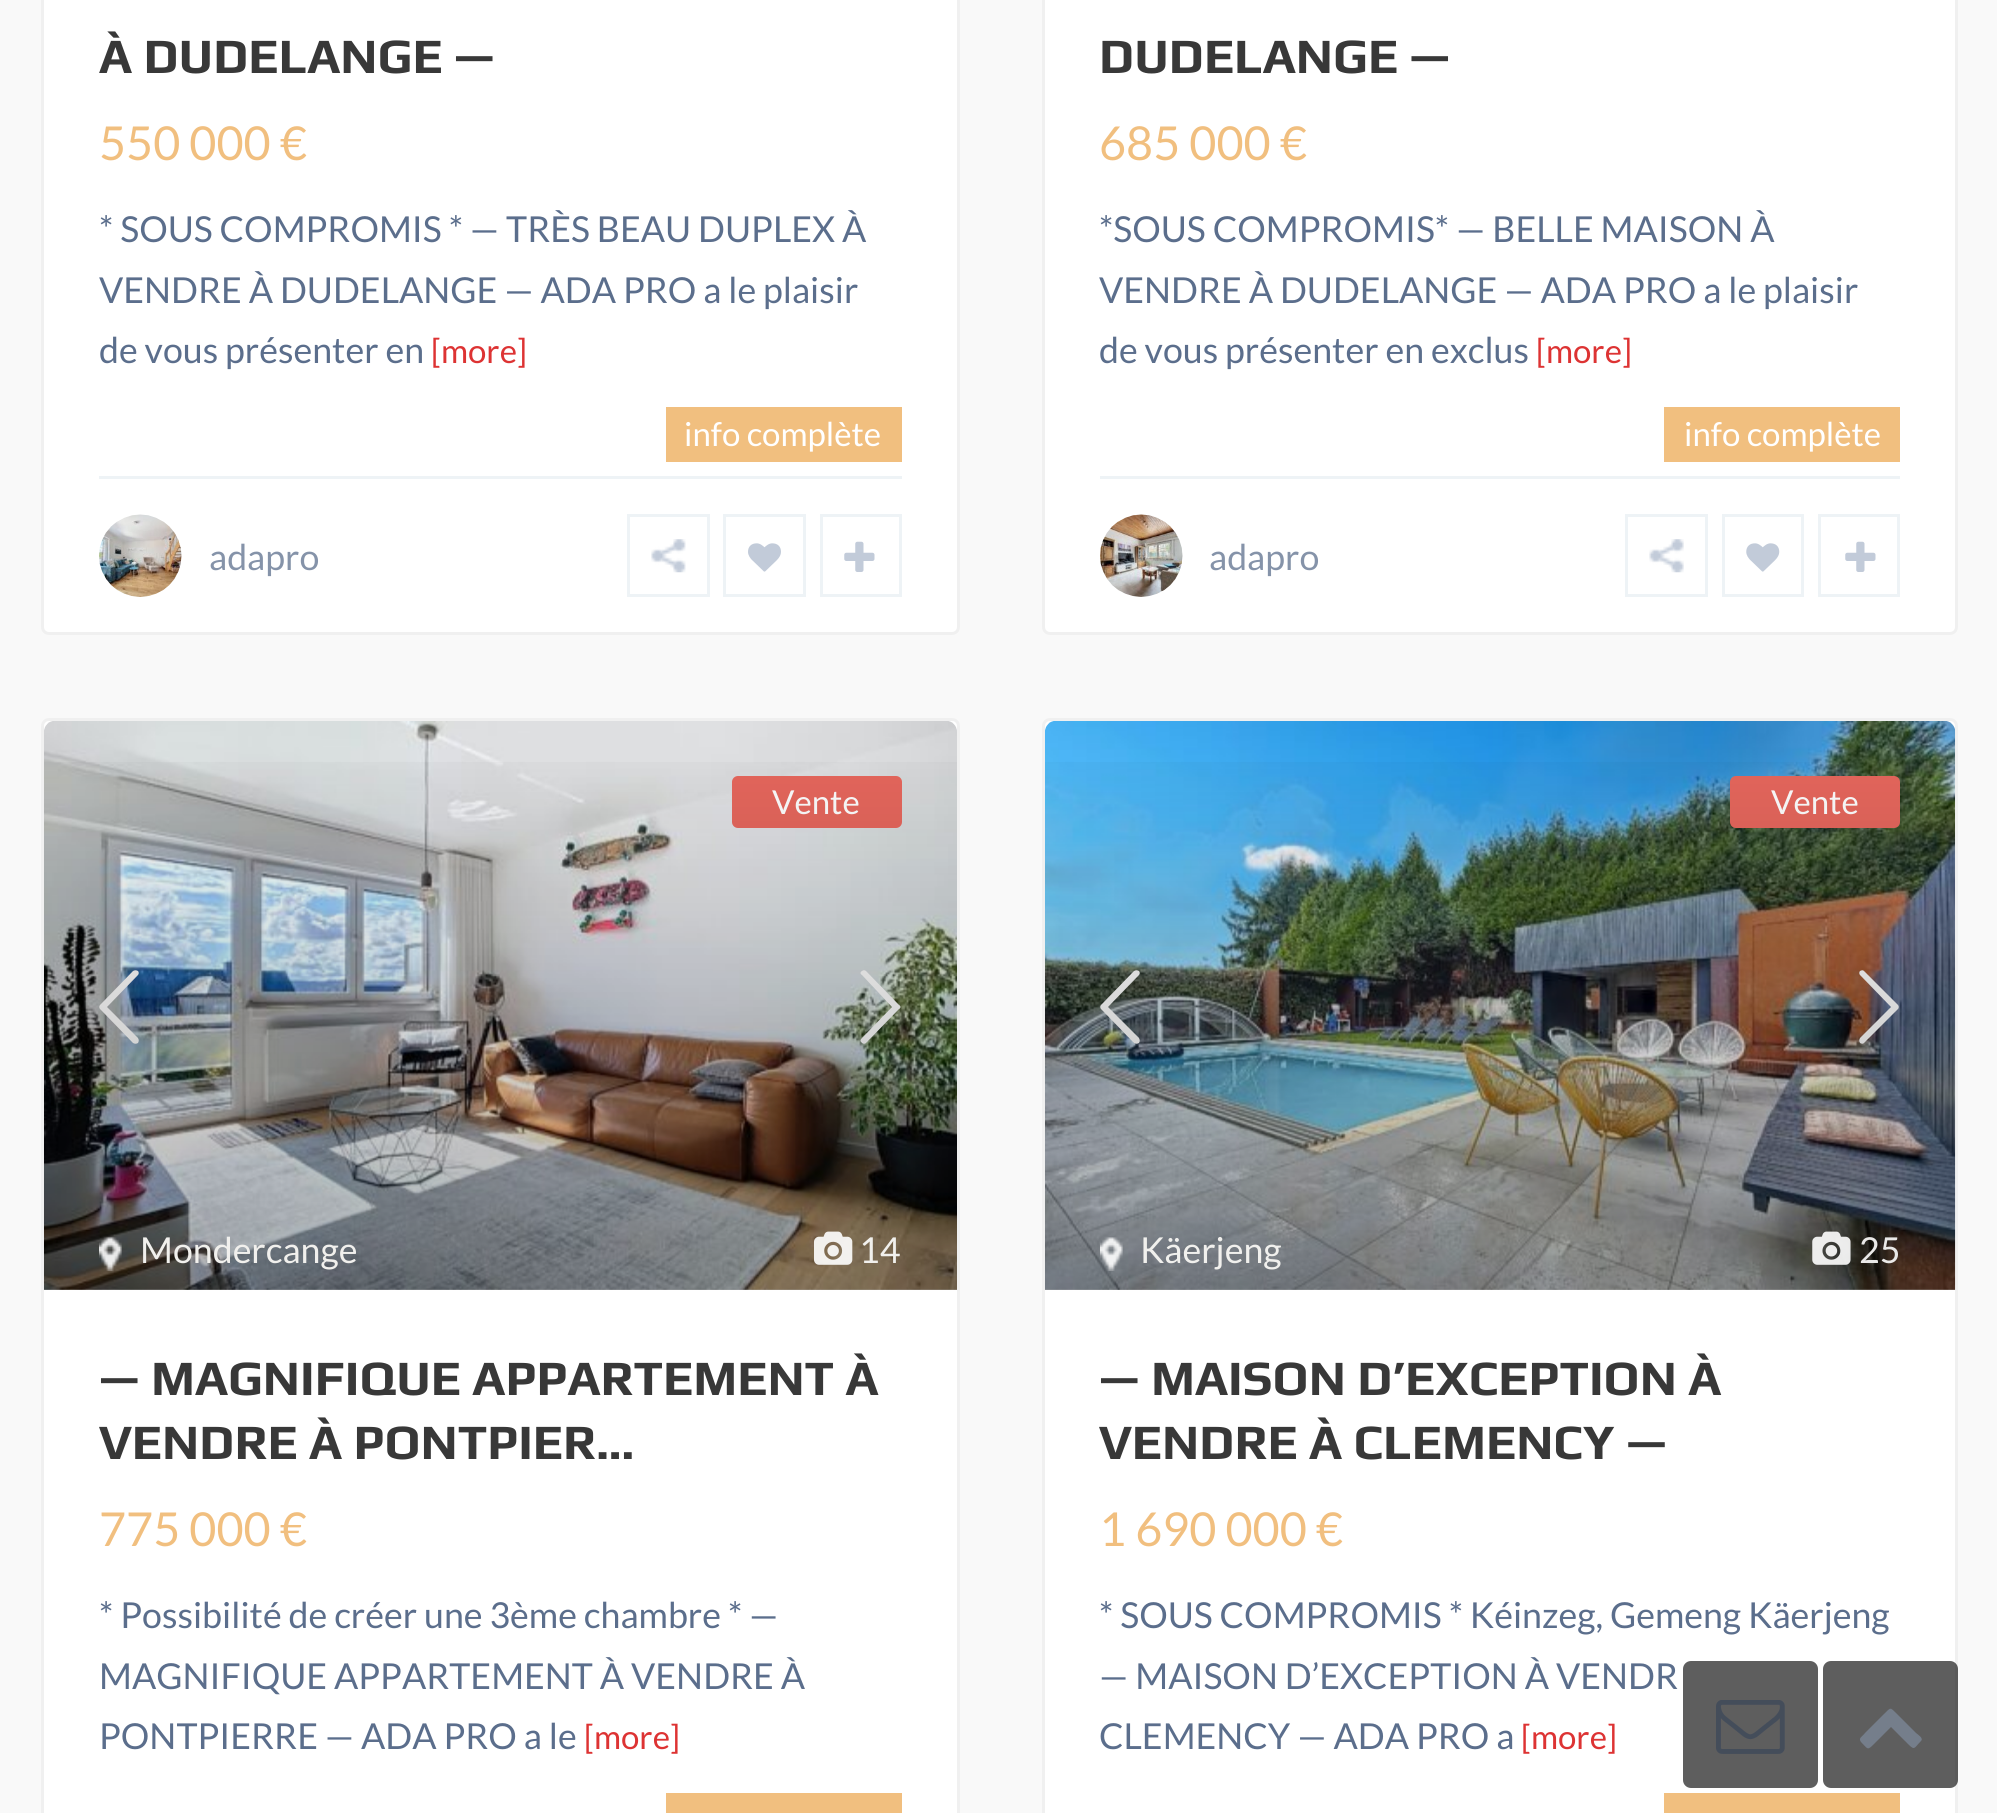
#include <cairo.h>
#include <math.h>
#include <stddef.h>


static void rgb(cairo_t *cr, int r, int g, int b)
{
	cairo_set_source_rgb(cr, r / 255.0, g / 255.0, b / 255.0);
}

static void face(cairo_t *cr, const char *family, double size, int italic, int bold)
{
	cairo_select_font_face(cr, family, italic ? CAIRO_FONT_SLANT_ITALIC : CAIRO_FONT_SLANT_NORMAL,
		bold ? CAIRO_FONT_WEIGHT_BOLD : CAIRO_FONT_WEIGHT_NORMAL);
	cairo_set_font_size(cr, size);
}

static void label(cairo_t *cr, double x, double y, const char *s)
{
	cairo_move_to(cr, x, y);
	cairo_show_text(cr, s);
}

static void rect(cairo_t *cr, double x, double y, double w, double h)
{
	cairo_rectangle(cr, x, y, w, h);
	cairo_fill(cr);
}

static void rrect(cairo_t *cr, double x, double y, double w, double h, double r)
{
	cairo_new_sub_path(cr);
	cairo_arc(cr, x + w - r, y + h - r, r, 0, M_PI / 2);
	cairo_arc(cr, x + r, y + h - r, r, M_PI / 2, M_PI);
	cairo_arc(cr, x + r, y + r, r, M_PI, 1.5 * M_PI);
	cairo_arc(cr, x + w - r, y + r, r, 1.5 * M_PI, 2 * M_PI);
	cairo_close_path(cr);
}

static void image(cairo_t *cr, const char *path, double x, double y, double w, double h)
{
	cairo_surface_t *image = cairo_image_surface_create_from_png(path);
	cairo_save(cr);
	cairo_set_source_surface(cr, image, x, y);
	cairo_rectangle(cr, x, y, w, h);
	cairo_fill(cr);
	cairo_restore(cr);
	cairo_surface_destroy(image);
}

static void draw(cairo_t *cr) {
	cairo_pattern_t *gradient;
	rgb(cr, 249, 249, 249);
	cairo_paint(cr);
	rgb(cr, 255, 255, 255);
	rrect(cr, 42.5, -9.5, 916, 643, 6.5);
	cairo_fill_preserve(cr);
	rgb(cr, 240, 240, 240);
	cairo_set_line_width(cr, 3);
	cairo_stroke(cr);
	face(cr, "Play", 49.5, 0, 1);
	rgb(cr, 56, 56, 56);
	label(cr, 99, 73, "À DUDELANGE —");
	face(cr, "Lato", 46.75, 0, 0);
	rgb(cr, 241, 191, 127);
	label(cr, 99, 160, "550 000 €");
	face(cr, "Lato", 35.75, 0, 0);
	rgb(cr, 91, 110, 140);
	label(cr, 99, 242, "* SOUS COMPROMIS * — TRÈS BEAU DUPLEX À");
	label(cr, 99, 303, "VENDRE À DUDELANGE — ADA PRO a le plaisir");
	label(cr, 99, 363, "de vous présenter en");
	face(cr, "Lato", 33, 0, 0);
	rgb(cr, 221, 51, 51);
	label(cr, 431, 363, "[more]");
	rgb(cr, 241, 191, 127);
	rect(cr, 666, 407, 236, 55);
	rgb(cr, 255, 255, 255);
	label(cr, 684, 446, "info complète");
	rgb(cr, 238, 243, 246);
	rect(cr, 99, 476, 803, 3);
	image(cr, "image0.png", 99, 514, 83, 83);
	face(cr, "Lato", 35.75, 0, 0);
	rgb(cr, 133, 147, 169);
	label(cr, 209, 570, "adapro");
	image(cr, "image1.png", 651, 539, 35, 34);
	cairo_rectangle(cr, 628.5, 515.5, 80, 80);
	rgb(cr, 238, 243, 246);
	cairo_stroke(cr);
	cairo_rectangle(cr, 724.5, 515.5, 80, 80);
	cairo_stroke(cr);
	image(cr, "image2.png", 748, 543, 33, 29);
	cairo_rectangle(cr, 821.5, 515.5, 79, 80);
	cairo_stroke(cr);
	image(cr, "image3.png", 844, 541, 31, 31);
	rgb(cr, 255, 255, 255);
	rrect(cr, 1043.5, -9.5, 913, 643, 6.5);
	cairo_fill_preserve(cr);
	rgb(cr, 240, 240, 240);
	cairo_stroke(cr);
	face(cr, "Play", 49.5, 0, 1);
	rgb(cr, 56, 56, 56);
	label(cr, 1099, 73, "DUDELANGE —");
	face(cr, "Lato", 46.75, 0, 0);
	rgb(cr, 241, 191, 127);
	label(cr, 1099, 160, "685 000 €");
	face(cr, "Lato", 35.75, 0, 0);
	rgb(cr, 91, 110, 140);
	label(cr, 1099, 242, "*SOUS COMPROMIS* — BELLE MAISON À");
	label(cr, 1099, 303, "VENDRE À DUDELANGE — ADA PRO a le plaisir");
	label(cr, 1099, 363, "de vous présenter en exclus");
	face(cr, "Lato", 33, 0, 0);
	rgb(cr, 221, 51, 51);
	label(cr, 1536, 363, "[more]");
	rgb(cr, 241, 191, 127);
	rect(cr, 1664, 407, 236, 55);
	rgb(cr, 255, 255, 255);
	label(cr, 1684, 446, "info complète");
	rgb(cr, 238, 243, 246);
	rect(cr, 1100, 476, 800, 3);
	image(cr, "image4.png", 1100, 514, 83, 83);
	face(cr, "Lato", 35.75, 0, 0);
	rgb(cr, 133, 147, 169);
	label(cr, 1209, 570, "adapro");
	image(cr, "image5.png", 1649, 539, 35, 34);
	cairo_rectangle(cr, 1626.5, 515.5, 80, 80);
	rgb(cr, 238, 243, 246);
	cairo_stroke(cr);
	cairo_rectangle(cr, 1723.5, 515.5, 79, 80);
	cairo_stroke(cr);
	image(cr, "image6.png", 1746, 543, 34, 29);
	cairo_rectangle(cr, 1819.5, 515.5, 79, 80);
	cairo_stroke(cr);
	image(cr, "image3.png", 1845, 541, 31, 31);
	rgb(cr, 255, 255, 255);
	rrect(cr, 42.5, 719.5, 916, 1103, 6.5);
	cairo_fill_preserve(cr);
	rgb(cr, 240, 240, 240);
	cairo_stroke(cr);
	image(cr, "image7.png", 44, 721, 913, 569);
	rgb(cr, 255, 255, 255);
	cairo_new_path(cr);
	cairo_move_to(cr, 138, 1038);
	cairo_curve_to(cr, 139, 1040, 139, 1041, 138, 1043);
	cairo_curve_to(cr, 136, 1044, 135, 1044, 133, 1043);
	cairo_line_to(cr, 100, 1009);
	cairo_curve_to(cr, 99, 1008, 99, 1006, 100, 1005);
	cairo_line_to(cr, 133, 971);
	cairo_curve_to(cr, 135, 970, 136, 970, 138, 971);
	cairo_curve_to(cr, 139, 972, 139, 974, 138, 975);
	cairo_line_to(cr, 107, 1007);
	cairo_close_path(cr);
	cairo_fill(cr);
	cairo_new_path(cr);
	cairo_move_to(cr, 862, 1038);
	cairo_line_to(cr, 892, 1007);
	cairo_line_to(cr, 862, 975);
	cairo_curve_to(cr, 860, 974, 860, 972, 862, 971);
	cairo_curve_to(cr, 863, 970, 865, 970, 866, 971);
	cairo_line_to(cr, 899, 1005);
	cairo_curve_to(cr, 901, 1006, 901, 1008, 899, 1009);
	cairo_line_to(cr, 866, 1043);
	cairo_curve_to(cr, 865, 1044, 863, 1044, 862, 1043);
	cairo_curve_to(cr, 860, 1041, 860, 1040, 862, 1038);
	cairo_close_path(cr);
	cairo_fill(cr);
	rgb(cr, 231, 103, 93);
	rrect(cr, 732, 776, 170, 52, 6);
	cairo_fill(cr);
	face(cr, "Lato", 33, 0, 0);
	rgb(cr, 255, 255, 255);
	label(cr, 772, 814, "Vente");
	gradient = cairo_pattern_create_linear(501, 721, 501, 1290);
	cairo_pattern_add_color_stop_rgba(gradient, 0, 0, 0, 0, 0);
	cairo_pattern_add_color_stop_rgba(gradient, 1, 0, 0, 0, 0.3);
	cairo_set_source(cr, gradient);
	cairo_pattern_destroy(gradient);
	rect(cr, 44, 762, 913, 528);
	image(cr, "image8.png", 99, 1237, 23, 34);
	face(cr, "Lato", 35.75, 0, 0);
	rgb(cr, 241, 240, 237);
	label(cr, 140, 1263, "Mondercange");
	image(cr, "image9.png", 814, 1231, 39, 34);
	label(cr, 859, 1263, "14");
	face(cr, "Play", 49.5, 0, 1);
	rgb(cr, 56, 56, 56);
	label(cr, 99, 1395, "— MAGNIFIQUE APPARTEMENT À");
	label(cr, 99, 1459, "VENDRE À PONTPIER...");
	face(cr, "Lato", 46.75, 0, 0);
	rgb(cr, 241, 191, 127);
	label(cr, 99, 1546, "775 000 €");
	face(cr, "Lato", 35.75, 0, 0);
	rgb(cr, 91, 110, 140);
	label(cr, 99, 1628, "* Possibilité de créer une 3ème chambre * —");
	label(cr, 99, 1689, "MAGNIFIQUE APPARTEMENT À VENDRE À");
	label(cr, 99, 1749, "PONTPIERRE — ADA PRO a le");
	face(cr, "Lato", 33, 0, 0);
	rgb(cr, 221, 51, 51);
	label(cr, 584, 1749, "[more]");
	rgb(cr, 241, 191, 127);
	rect(cr, 666, 1793, 236, 20);
	rgb(cr, 255, 255, 255);
	rrect(cr, 1043.5, 719.5, 913, 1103, 6.5);
	cairo_fill_preserve(cr);
	rgb(cr, 240, 240, 240);
	cairo_stroke(cr);
	image(cr, "image10.png", 1045, 721, 911, 569);
	rgb(cr, 255, 255, 255);
	cairo_new_path(cr);
	cairo_move_to(cr, 1139, 1038);
	cairo_curve_to(cr, 1140, 1040, 1140, 1041, 1139, 1043);
	cairo_curve_to(cr, 1137, 1044, 1136, 1044, 1134, 1043);
	cairo_line_to(cr, 1101, 1009);
	cairo_curve_to(cr, 1100, 1008, 1100, 1006, 1101, 1005);
	cairo_line_to(cr, 1134, 971);
	cairo_curve_to(cr, 1136, 970, 1137, 970, 1139, 971);
	cairo_curve_to(cr, 1140, 972, 1140, 974, 1139, 975);
	cairo_line_to(cr, 1108, 1007);
	cairo_close_path(cr);
	cairo_fill(cr);
	cairo_new_path(cr);
	cairo_move_to(cr, 1860, 1038);
	cairo_line_to(cr, 1891, 1007);
	cairo_line_to(cr, 1860, 975);
	cairo_curve_to(cr, 1859, 974, 1859, 972, 1860, 971);
	cairo_curve_to(cr, 1862, 970, 1863, 970, 1864, 971);
	cairo_line_to(cr, 1898, 1005);
	cairo_curve_to(cr, 1899, 1006, 1899, 1008, 1898, 1009);
	cairo_line_to(cr, 1864, 1043);
	cairo_curve_to(cr, 1863, 1044, 1862, 1044, 1860, 1043);
	cairo_curve_to(cr, 1859, 1041, 1859, 1040, 1860, 1038);
	cairo_close_path(cr);
	cairo_fill(cr);
	rgb(cr, 231, 103, 93);
	rrect(cr, 1730, 776, 170, 52, 6);
	cairo_fill(cr);
	rgb(cr, 255, 255, 255);
	label(cr, 1771, 814, "Vente");
	gradient = cairo_pattern_create_linear(1500, 721, 1500, 1290);
	cairo_pattern_add_color_stop_rgba(gradient, 0, 0, 0, 0, 0);
	cairo_pattern_add_color_stop_rgba(gradient, 1, 0, 0, 0, 0.3);
	cairo_set_source(cr, gradient);
	cairo_pattern_destroy(gradient);
	rect(cr, 1045, 762, 910, 528);
	image(cr, "image11.png", 1100, 1237, 23, 34);
	face(cr, "Lato", 35.75, 0, 0);
	rgb(cr, 241, 240, 237);
	label(cr, 1140, 1263, "Käerjeng");
	image(cr, "image12.png", 1812, 1231, 39, 34);
	rgb(cr, 234, 233, 232);
	label(cr, 1859, 1263, "25");
	face(cr, "Play", 49.5, 0, 1);
	rgb(cr, 56, 56, 56);
	label(cr, 1099, 1395, "— MAISON D’EXCEPTION À");
	label(cr, 1099, 1459, "VENDRE À CLEMENCY —");
	face(cr, "Lato", 46.75, 0, 0);
	rgb(cr, 241, 191, 127);
	label(cr, 1099, 1546, "1 690 000 €");
	face(cr, "Lato", 35.75, 0, 0);
	rgb(cr, 91, 110, 140);
	label(cr, 1099, 1628, "* SOUS COMPROMIS * Kéinzeg, Gemeng Käerjeng");
	label(cr, 1099, 1689, "— MAISON D’EXCEPTION À VENDR");
	label(cr, 1099, 1749, "CLEMENCY — ADA PRO a");
	face(cr, "Lato", 33, 0, 0);
	rgb(cr, 221, 51, 51);
	label(cr, 1521, 1749, "[more]");
	rgb(cr, 241, 191, 127);
	rect(cr, 1664, 1793, 236, 20);
	cairo_set_source_rgba(cr, 0.102, 0.102, 0.102, 0.7);
	rrect(cr, 1683, 1661, 135, 127, 8);
	cairo_fill(cr);
	image(cr, "image13.png", 1716, 1700, 69, 54);
	rrect(cr, 1823, 1661, 135, 127, 8);
	cairo_fill(cr);
	rgb(cr, 117, 126, 139);
	cairo_new_path(cr);
	cairo_move_to(cr, 1921, 1741);
	cairo_curve_to(cr, 1914, 1748, 1915, 1751, 1908, 1744);
	cairo_line_to(cr, 1891, 1727);
	cairo_line_to(cr, 1874, 1744);
	cairo_curve_to(cr, 1867, 1751, 1868, 1749, 1861, 1742);
	cairo_curve_to(cr, 1858, 1738, 1862, 1737, 1865, 1733);
	cairo_line_to(cr, 1884, 1714);
	cairo_curve_to(cr, 1891, 1707, 1890, 1707, 1897, 1714);
	cairo_line_to(cr, 1916, 1733);
	cairo_curve_to(cr, 1917, 1734, 1924, 1738, 1921, 1741);
	cairo_close_path(cr);
	cairo_fill(cr);
}

int main(void) {
	cairo_surface_t *surface = cairo_image_surface_create(CAIRO_FORMAT_RGB24, 1997, 1813);
	cairo_t *cr = cairo_create(surface);
	cairo_font_options_t *options = cairo_font_options_create();
	cairo_font_options_set_hint_metrics(options, CAIRO_HINT_METRICS_OFF);
	cairo_font_options_set_hint_style(options, CAIRO_HINT_STYLE_NONE);
	cairo_set_font_options(cr, options);
	cairo_set_miter_limit(cr, 4);
	draw(cr);
	cairo_surface_write_to_png(surface, "render.png");
	cairo_font_options_destroy(options);
	cairo_destroy(cr);
	cairo_surface_destroy(surface);
	return 0;
}
